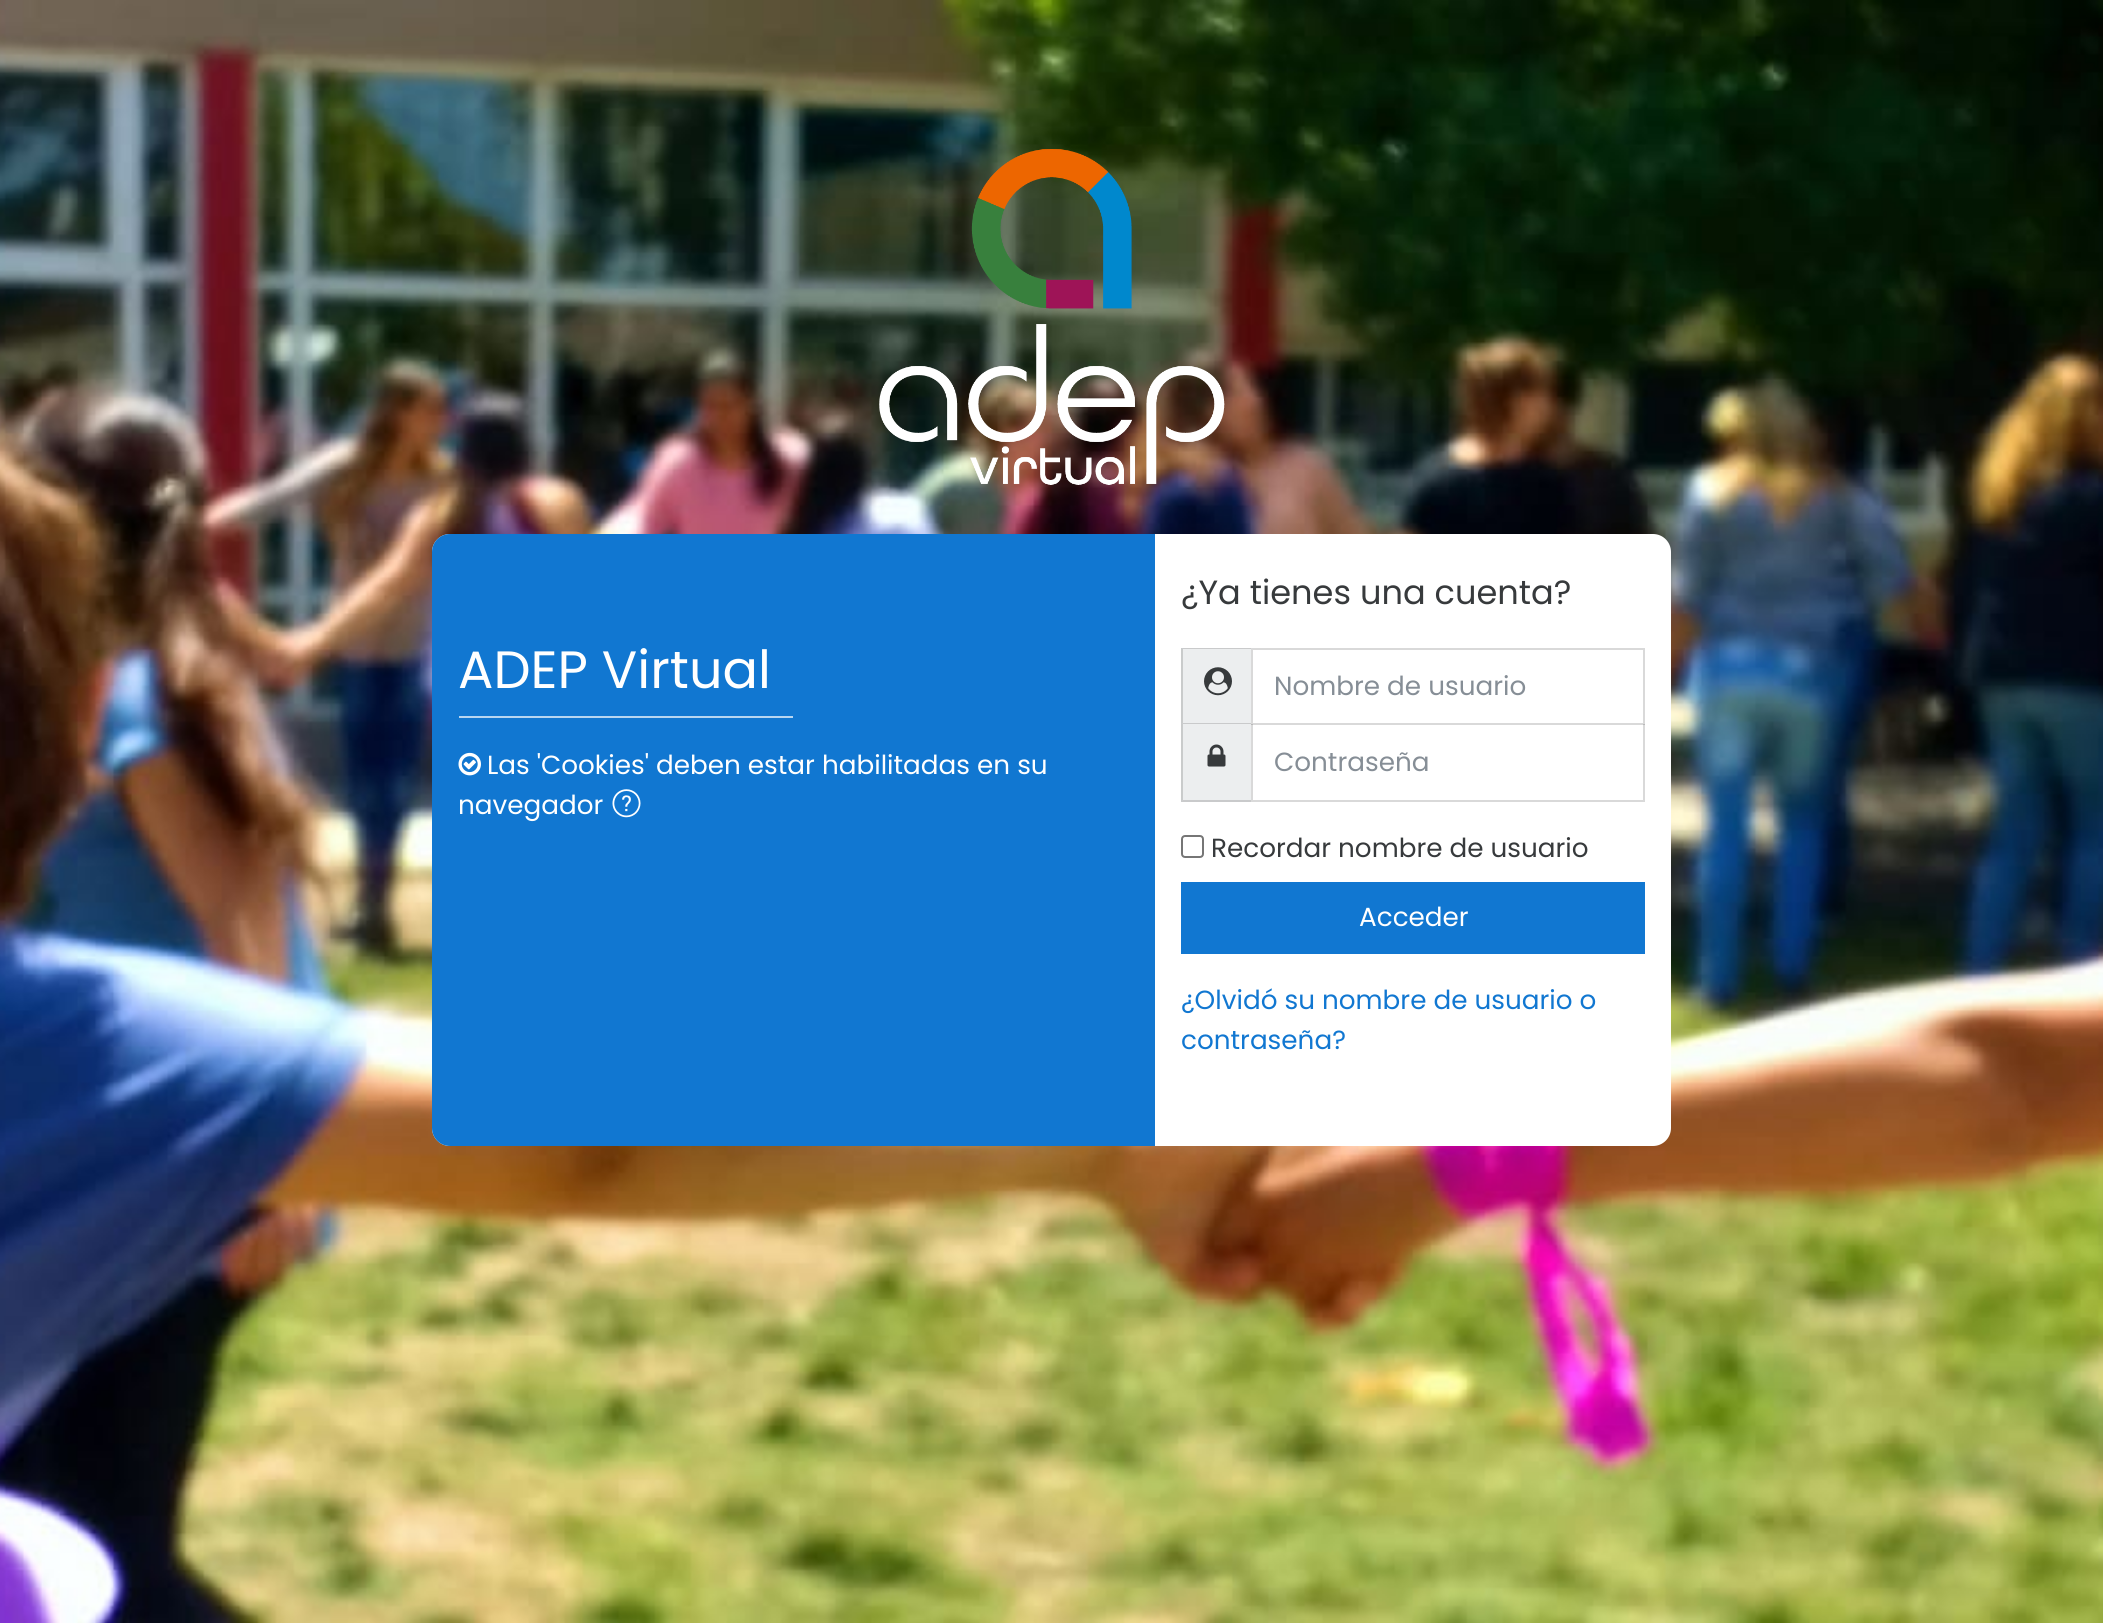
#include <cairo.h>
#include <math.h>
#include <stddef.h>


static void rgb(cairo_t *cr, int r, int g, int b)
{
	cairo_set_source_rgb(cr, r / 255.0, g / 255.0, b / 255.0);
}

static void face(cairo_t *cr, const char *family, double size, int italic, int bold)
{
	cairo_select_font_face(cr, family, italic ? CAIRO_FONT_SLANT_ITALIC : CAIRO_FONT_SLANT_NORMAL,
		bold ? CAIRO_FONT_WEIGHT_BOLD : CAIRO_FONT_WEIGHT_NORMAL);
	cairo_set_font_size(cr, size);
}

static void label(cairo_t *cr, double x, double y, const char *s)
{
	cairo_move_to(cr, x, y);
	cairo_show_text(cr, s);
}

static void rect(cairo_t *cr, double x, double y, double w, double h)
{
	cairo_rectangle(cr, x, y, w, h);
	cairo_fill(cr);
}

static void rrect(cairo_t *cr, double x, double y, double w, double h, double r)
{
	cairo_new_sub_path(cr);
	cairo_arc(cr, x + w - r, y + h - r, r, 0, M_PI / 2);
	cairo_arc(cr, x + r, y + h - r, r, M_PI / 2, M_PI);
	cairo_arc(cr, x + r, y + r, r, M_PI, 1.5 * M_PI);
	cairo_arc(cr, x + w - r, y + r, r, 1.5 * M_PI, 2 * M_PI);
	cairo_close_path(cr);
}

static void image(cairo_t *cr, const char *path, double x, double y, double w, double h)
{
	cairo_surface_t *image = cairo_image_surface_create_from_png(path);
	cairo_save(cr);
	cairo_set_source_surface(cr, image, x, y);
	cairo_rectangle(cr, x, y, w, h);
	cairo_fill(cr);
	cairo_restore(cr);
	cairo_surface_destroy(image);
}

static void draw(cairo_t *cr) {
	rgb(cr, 255, 255, 255);
	cairo_paint(cr);
	image(cr, "image0.png", 0, 0, 2103, 1623);
	image(cr, "image1.png", 879, 149, 346, 336);
	rgb(cr, 255, 255, 255);
	rrect(cr, 432, 534, 1239, 612, 18);
	cairo_fill(cr);
	rgb(cr, 17, 119, 209);
	cairo_new_path(cr);
	cairo_move_to(cr, 450, 534);
	cairo_line_to(cr, 1155, 534);
	cairo_line_to(cr, 1155, 1146);
	cairo_line_to(cr, 450, 1146);
	cairo_curve_to(cr, 440, 1146, 432, 1138, 432, 1128);
	cairo_line_to(cr, 432, 552);
	cairo_curve_to(cr, 432, 542, 440, 534, 450, 534);
	cairo_close_path(cr);
	cairo_fill(cr);
	face(cr, "Poppins", 52.5, 0, 0);
	rgb(cr, 255, 255, 255);
	label(cr, 458, 688, "ADEP Virtual");
	rgb(cr, 184, 214, 241);
	rect(cr, 459, 716, 334, 2);
	image(cr, "image2.png", 458, 752, 23, 24);
	face(cr, "Poppins", 26.25, 0, 0);
	rgb(cr, 255, 255, 255);
	label(cr, 487, 774, "Las 'Cookies' deben estar habilitadas en su");
	label(cr, 458, 814, "navegador");
	image(cr, "image3.png", 612, 789, 29, 29);
	face(cr, "Poppins", 33.6, 0, 0);
	rgb(cr, 55, 58, 60);
	label(cr, 1181, 604, "¿Ya tienes una cuenta?");
	rgb(cr, 236, 238, 239);
	rect(cr, 1181, 648, 70, 154);
	rgb(cr, 201, 202, 203);
	cairo_new_path(cr);
	cairo_move_to(cr, 1181, 648);
	cairo_line_to(cr, 1251, 648);
	cairo_line_to(cr, 1251, 649);
	cairo_line_to(cr, 1183, 649);
	cairo_close_path(cr);
	cairo_fill(cr);
	cairo_new_path(cr);
	cairo_move_to(cr, 1251, 724);
	cairo_line_to(cr, 1181, 724);
	cairo_line_to(cr, 1183, 723);
	cairo_line_to(cr, 1251, 723);
	cairo_close_path(cr);
	cairo_fill(cr);
	cairo_set_source_rgba(cr, 0, 0, 0, 0.15);
	cairo_new_path(cr);
	cairo_move_to(cr, 1181, 724);
	cairo_line_to(cr, 1181, 648);
	cairo_line_to(cr, 1183, 649);
	cairo_line_to(cr, 1183, 723);
	cairo_close_path(cr);
	cairo_fill(cr);
	image(cr, "image4.png", 1204, 667, 28, 29);
	cairo_rectangle(cr, 1252, 649, 392, 75);
	rgb(cr, 217, 217, 217);
	cairo_stroke(cr);
	face(cr, "Poppins", 26.25, 0, 0);
	rgb(cr, 134, 142, 150);
	label(cr, 1274, 695, "Nombre de usuario");
	rgb(cr, 201, 202, 203);
	cairo_new_path(cr);
	cairo_move_to(cr, 1251, 802);
	cairo_line_to(cr, 1181, 802);
	cairo_line_to(cr, 1183, 800);
	cairo_line_to(cr, 1251, 800);
	cairo_close_path(cr);
	cairo_fill(cr);
	cairo_set_source_rgba(cr, 0, 0, 0, 0.15);
	cairo_new_path(cr);
	cairo_move_to(cr, 1181, 802);
	cairo_line_to(cr, 1181, 724);
	cairo_line_to(cr, 1183, 724);
	cairo_line_to(cr, 1183, 800);
	cairo_close_path(cr);
	cairo_fill(cr);
	image(cr, "image5.png", 1207, 744, 19, 23);
	cairo_new_path(cr);
	cairo_move_to(cr, 1645, 724);
	cairo_line_to(cr, 1645, 802);
	cairo_line_to(cr, 1643, 800);
	cairo_line_to(cr, 1643, 724);
	cairo_close_path(cr);
	cairo_fill(cr);
	cairo_new_path(cr);
	cairo_move_to(cr, 1645, 802);
	cairo_line_to(cr, 1251, 802);
	cairo_line_to(cr, 1253, 800);
	cairo_line_to(cr, 1643, 800);
	cairo_close_path(cr);
	cairo_fill(cr);
	cairo_new_path(cr);
	cairo_move_to(cr, 1251, 802);
	cairo_line_to(cr, 1251, 724);
	cairo_line_to(cr, 1253, 724);
	cairo_line_to(cr, 1253, 800);
	cairo_close_path(cr);
	cairo_fill(cr);
	rgb(cr, 134, 142, 150);
	label(cr, 1274, 771, "Contraseña");
	rrect(cr, 1182, 836, 21, 21, 3);
	rgb(cr, 118, 118, 118);
	cairo_stroke(cr);
	rgb(cr, 55, 58, 60);
	label(cr, 1211, 857, "Recordar nombre de usuario");
	rgb(cr, 17, 119, 209);
	rect(cr, 1181, 882, 464, 72);
	rgb(cr, 255, 255, 255);
	label(cr, 1359, 926, "Acceder");
	rgb(cr, 17, 119, 209);
	label(cr, 1181, 1009, "¿Olvidó su nombre de usuario o");
	label(cr, 1181, 1049, "contraseña?");
}

int main(void) {
	cairo_surface_t *surface = cairo_image_surface_create(CAIRO_FORMAT_RGB24, 2103, 1623);
	cairo_t *cr = cairo_create(surface);
	cairo_font_options_t *options = cairo_font_options_create();
	cairo_font_options_set_hint_metrics(options, CAIRO_HINT_METRICS_OFF);
	cairo_font_options_set_hint_style(options, CAIRO_HINT_STYLE_NONE);
	cairo_set_font_options(cr, options);
	cairo_set_miter_limit(cr, 4);
	draw(cr);
	cairo_surface_write_to_png(surface, "render.png");
	cairo_font_options_destroy(options);
	cairo_destroy(cr);
	cairo_surface_destroy(surface);
	return 0;
}
